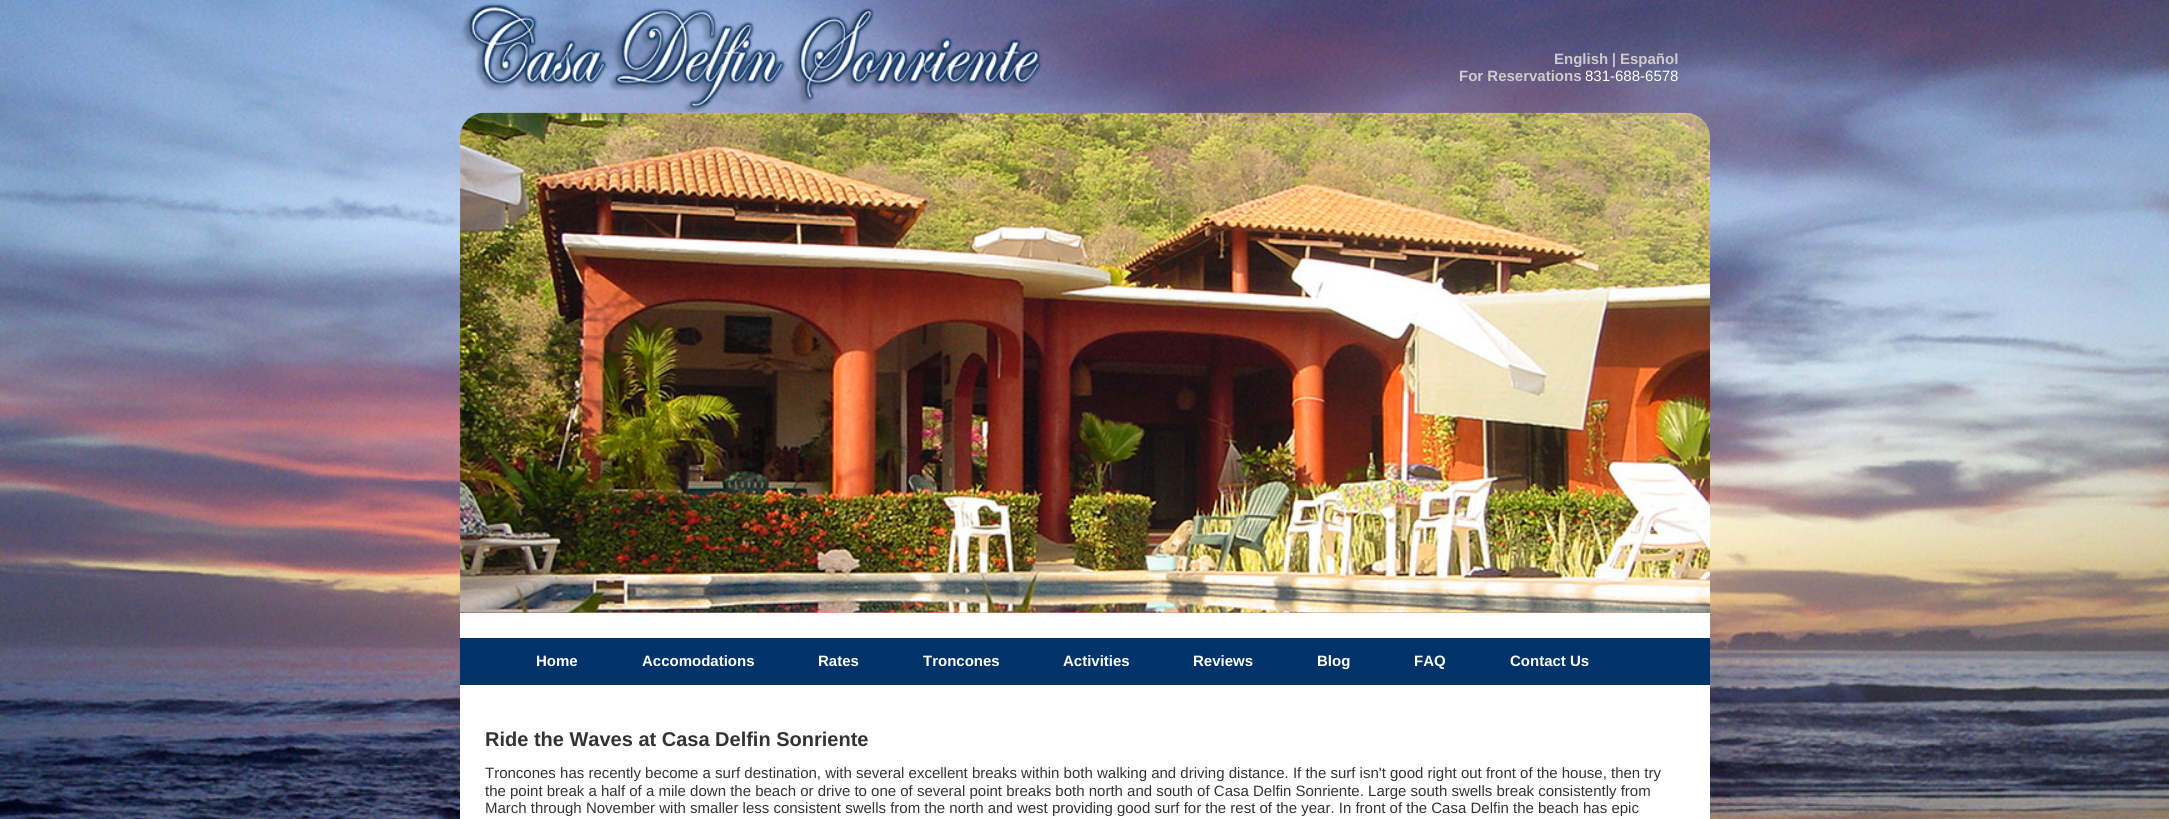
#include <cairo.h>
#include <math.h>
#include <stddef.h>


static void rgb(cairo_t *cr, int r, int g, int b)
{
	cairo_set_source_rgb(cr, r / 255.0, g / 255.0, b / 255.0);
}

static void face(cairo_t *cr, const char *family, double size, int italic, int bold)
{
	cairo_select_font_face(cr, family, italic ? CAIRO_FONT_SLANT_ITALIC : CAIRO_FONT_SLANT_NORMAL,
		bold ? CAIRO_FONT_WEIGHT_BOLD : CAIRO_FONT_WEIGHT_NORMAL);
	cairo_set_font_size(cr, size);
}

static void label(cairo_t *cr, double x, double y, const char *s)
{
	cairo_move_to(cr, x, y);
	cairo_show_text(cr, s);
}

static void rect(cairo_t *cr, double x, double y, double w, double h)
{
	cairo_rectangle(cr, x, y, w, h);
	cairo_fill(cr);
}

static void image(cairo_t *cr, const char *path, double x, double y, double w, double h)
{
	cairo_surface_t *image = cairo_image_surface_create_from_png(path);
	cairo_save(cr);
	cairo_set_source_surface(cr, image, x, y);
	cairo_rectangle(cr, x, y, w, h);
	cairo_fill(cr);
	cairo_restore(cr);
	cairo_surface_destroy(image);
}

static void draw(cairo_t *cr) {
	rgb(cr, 255, 255, 255);
	cairo_paint(cr);
	image(cr, "image0.png", 0, 0, 2169, 819);
	image(cr, "image1.png", 462, 3, 580, 109);
	face(cr, "Liberation Sans", 15, 0, 1);
	rgb(cr, 204, 204, 204);
	label(cr, 1554, 64, "English");
	face(cr, "Liberation Sans", 15, 0, 0);
	rgb(cr, 255, 255, 255);
	label(cr, 1612, 64, "|");
	face(cr, "Liberation Sans", 15, 0, 1);
	rgb(cr, 204, 204, 204);
	label(cr, 1620, 64, "Español");
	label(cr, 1459, 81, "For Reservations");
	face(cr, "Liberation Sans", 15, 0, 0);
	rgb(cr, 255, 255, 255);
	label(cr, 1585, 81, "831-688-6578");
	image(cr, "image2.png", 460, 112, 1250, 501);
	rect(cr, 460, 613, 1250, 206);
	rgb(cr, 0, 51, 106);
	rect(cr, 460, 638, 1250, 47);
	face(cr, "Liberation Sans", 15, 0, 1);
	rgb(cr, 255, 255, 255);
	label(cr, 536, 666, "Home");
	label(cr, 642, 666, "Accomodations");
	label(cr, 818, 666, "Rates");
	label(cr, 923, 666, "Troncones");
	label(cr, 1063, 666, "Activities");
	label(cr, 1193, 666, "Reviews");
	label(cr, 1317, 666, "Blog");
	label(cr, 1414, 666, "FAQ");
	label(cr, 1510, 666, "Contact Us");
	face(cr, "Liberation Sans", 20, 0, 1);
	rgb(cr, 51, 51, 51);
	label(cr, 485, 746, "Ride the Waves at Casa Delfin Sonriente");
	face(cr, "Liberation Sans", 15, 0, 0);
	label(cr, 485, 778, "Troncones has recently become a surf destination, with several excellent breaks within both walking and driving distance. If the surf isn't good right out front of the house, then try");
	label(cr, 485, 796, "the point break a half of a mile down the beach or drive to one of several point breaks both north and south of Casa Delfin Sonriente. Large south swells break consistently from");
	label(cr, 485, 813, "March through November with smaller less consistent swells from the north and west providing good surf for the rest of the year. In front of the Casa Delfin the beach has epic");
}

int main(void) {
	cairo_surface_t *surface = cairo_image_surface_create(CAIRO_FORMAT_RGB24, 2169, 819);
	cairo_t *cr = cairo_create(surface);
	cairo_font_options_t *options = cairo_font_options_create();
	cairo_font_options_set_hint_metrics(options, CAIRO_HINT_METRICS_OFF);
	cairo_font_options_set_hint_style(options, CAIRO_HINT_STYLE_NONE);
	cairo_set_font_options(cr, options);
	cairo_set_miter_limit(cr, 4);
	draw(cr);
	cairo_surface_write_to_png(surface, "render.png");
	cairo_font_options_destroy(options);
	cairo_destroy(cr);
	cairo_surface_destroy(surface);
	return 0;
}
